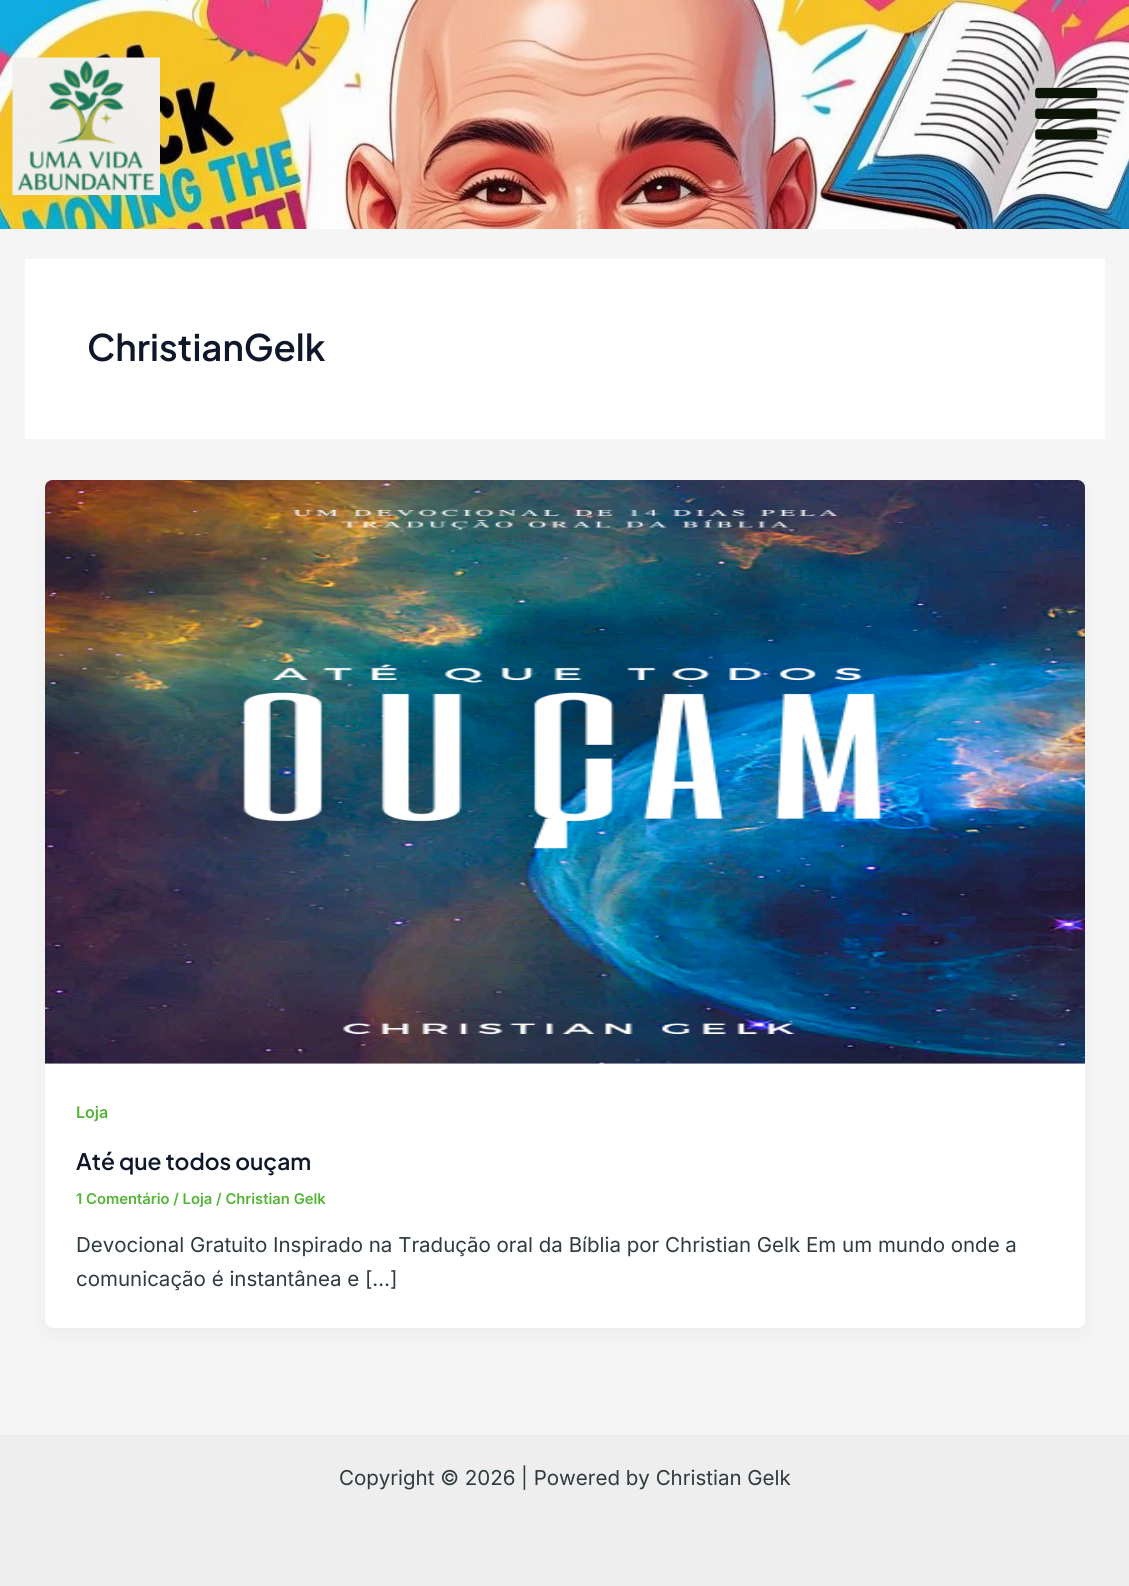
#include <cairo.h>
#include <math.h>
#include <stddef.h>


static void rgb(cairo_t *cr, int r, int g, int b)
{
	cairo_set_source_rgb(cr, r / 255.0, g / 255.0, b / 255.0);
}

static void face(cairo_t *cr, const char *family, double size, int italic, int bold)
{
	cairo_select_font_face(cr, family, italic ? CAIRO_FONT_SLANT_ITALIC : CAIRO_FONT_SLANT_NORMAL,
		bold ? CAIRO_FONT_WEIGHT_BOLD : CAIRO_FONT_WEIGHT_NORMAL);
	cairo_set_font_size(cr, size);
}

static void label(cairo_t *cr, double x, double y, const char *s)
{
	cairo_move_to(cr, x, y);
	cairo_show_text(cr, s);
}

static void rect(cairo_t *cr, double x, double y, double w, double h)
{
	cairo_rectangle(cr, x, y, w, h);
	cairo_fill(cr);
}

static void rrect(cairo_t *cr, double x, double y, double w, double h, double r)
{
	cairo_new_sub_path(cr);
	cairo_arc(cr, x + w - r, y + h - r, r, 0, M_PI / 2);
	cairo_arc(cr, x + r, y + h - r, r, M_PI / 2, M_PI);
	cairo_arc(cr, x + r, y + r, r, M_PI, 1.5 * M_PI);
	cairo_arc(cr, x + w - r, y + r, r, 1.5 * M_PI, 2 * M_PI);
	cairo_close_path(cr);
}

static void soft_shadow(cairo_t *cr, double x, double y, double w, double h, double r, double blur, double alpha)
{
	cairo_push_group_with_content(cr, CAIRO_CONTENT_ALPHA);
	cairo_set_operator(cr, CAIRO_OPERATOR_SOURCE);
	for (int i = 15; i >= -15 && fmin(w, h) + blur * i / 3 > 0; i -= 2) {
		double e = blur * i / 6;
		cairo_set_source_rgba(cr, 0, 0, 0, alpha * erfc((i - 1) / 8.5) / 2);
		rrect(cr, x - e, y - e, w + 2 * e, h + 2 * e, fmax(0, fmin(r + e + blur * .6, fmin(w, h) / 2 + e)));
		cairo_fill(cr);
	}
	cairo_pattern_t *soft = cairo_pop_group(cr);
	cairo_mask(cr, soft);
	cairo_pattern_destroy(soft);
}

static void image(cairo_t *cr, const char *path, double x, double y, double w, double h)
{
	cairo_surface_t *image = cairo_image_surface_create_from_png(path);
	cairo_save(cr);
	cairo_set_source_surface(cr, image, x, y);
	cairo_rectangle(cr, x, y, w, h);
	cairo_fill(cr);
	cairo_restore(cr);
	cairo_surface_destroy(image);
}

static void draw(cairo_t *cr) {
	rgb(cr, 245, 245, 245);
	cairo_paint(cr);
	image(cr, "image0.png", 0, 0, 1129, 229);
	image(cr, "image1.png", 12, 57, 148, 138);
	image(cr, "image2.png", 1035, 87, 63, 53);
	rgb(cr, 255, 255, 255);
	rect(cr, 25, 259, 1080, 180);
	face(cr, "Plus Jakarta Sans SemiBold", 36.5, 0, 0);
	rgb(cr, 15, 23, 42);
	label(cr, 87, 361, "ChristianGelk");
	rgb(cr, 16, 24, 40);
	soft_shadow(cr, 48, 490, 1035, 843, 5, 9.5, 0.05);
	rgb(cr, 255, 255, 255);
	rrect(cr, 45, 480, 1040, 848, 8);
	cairo_fill(cr);
	image(cr, "image3.png", 45, 480, 1040, 584);
	face(cr, "Inter SemiBold", 16, 0, 0);
	rgb(cr, 84, 180, 53);
	label(cr, 76, 1118, "Loja");
	face(cr, "Plus Jakarta Sans SemiBold", 22.75, 0, 0);
	rgb(cr, 15, 23, 42);
	label(cr, 76, 1170, "Até que todos ouçam");
	face(cr, "Inter SemiBold", 14.8, 0, 0);
	rgb(cr, 84, 180, 53);
	label(cr, 76, 1204, "1 Comentário / Loja / Christian Gelk");
	face(cr, "Inter", 20.5, 0, 0);
	rgb(cr, 47, 59, 64);
	label(cr, 76, 1252, "Devocional Gratuito Inspirado na Tradução oral da Bíblia por Christian Gelk Em um mundo onde a");
	label(cr, 76, 1286, "comunicação é instantânea e […]");
	rgb(cr, 238, 238, 238);
	rect(cr, 0, 1436, 1129, 150);
	rgb(cr, 234, 234, 234);
	rect(cr, 0, 1435, 1129, 1);
	rgb(cr, 47, 59, 64);
	label(cr, 339, 1485, "Copyright © 2026 | Powered by Christian Gelk");
}

int main(void) {
	cairo_surface_t *surface = cairo_image_surface_create(CAIRO_FORMAT_RGB24, 1129, 1586);
	cairo_t *cr = cairo_create(surface);
	cairo_font_options_t *options = cairo_font_options_create();
	cairo_font_options_set_hint_metrics(options, CAIRO_HINT_METRICS_OFF);
	cairo_font_options_set_hint_style(options, CAIRO_HINT_STYLE_NONE);
	cairo_set_font_options(cr, options);
	cairo_set_miter_limit(cr, 4);
	draw(cr);
	cairo_surface_write_to_png(surface, "render.png");
	cairo_font_options_destroy(options);
	cairo_destroy(cr);
	cairo_surface_destroy(surface);
	return 0;
}
